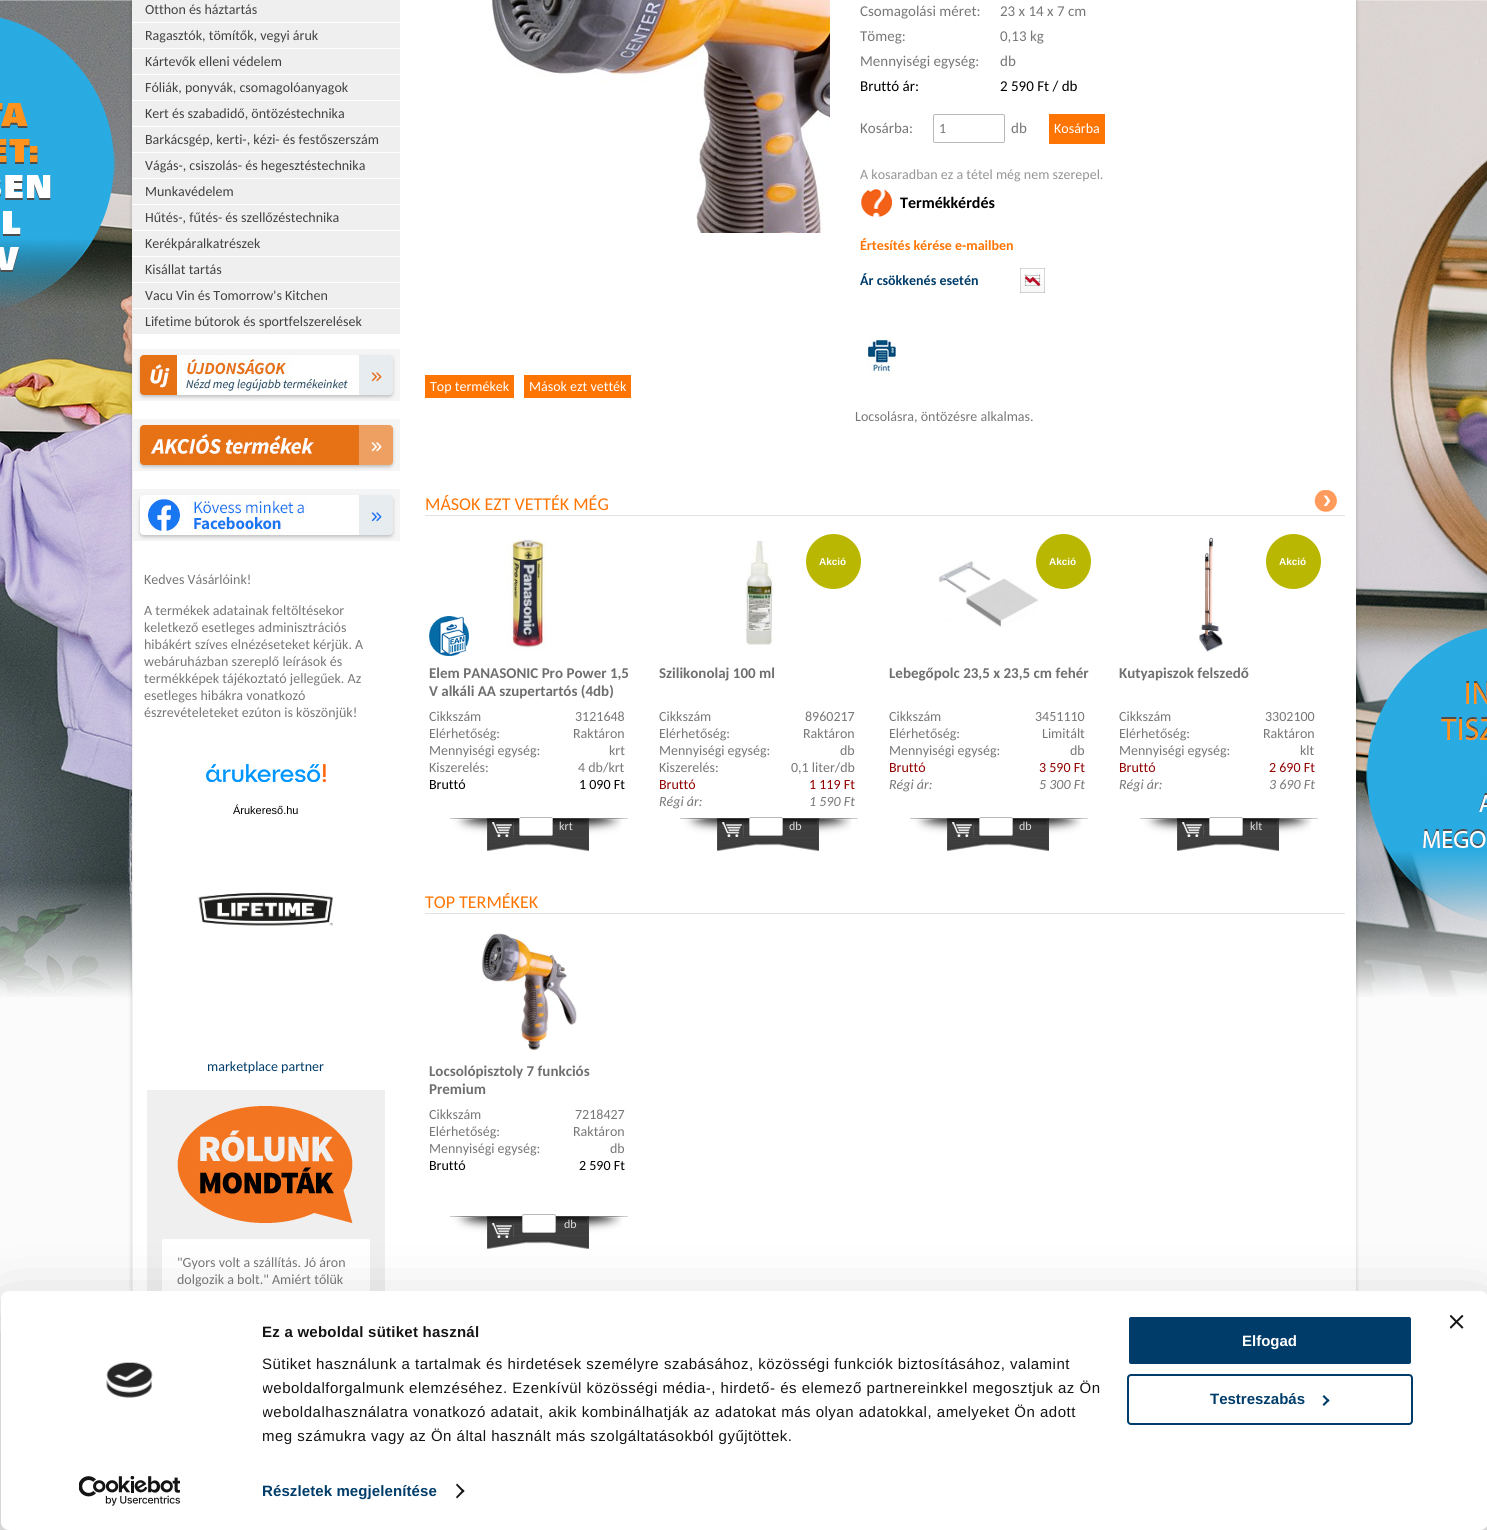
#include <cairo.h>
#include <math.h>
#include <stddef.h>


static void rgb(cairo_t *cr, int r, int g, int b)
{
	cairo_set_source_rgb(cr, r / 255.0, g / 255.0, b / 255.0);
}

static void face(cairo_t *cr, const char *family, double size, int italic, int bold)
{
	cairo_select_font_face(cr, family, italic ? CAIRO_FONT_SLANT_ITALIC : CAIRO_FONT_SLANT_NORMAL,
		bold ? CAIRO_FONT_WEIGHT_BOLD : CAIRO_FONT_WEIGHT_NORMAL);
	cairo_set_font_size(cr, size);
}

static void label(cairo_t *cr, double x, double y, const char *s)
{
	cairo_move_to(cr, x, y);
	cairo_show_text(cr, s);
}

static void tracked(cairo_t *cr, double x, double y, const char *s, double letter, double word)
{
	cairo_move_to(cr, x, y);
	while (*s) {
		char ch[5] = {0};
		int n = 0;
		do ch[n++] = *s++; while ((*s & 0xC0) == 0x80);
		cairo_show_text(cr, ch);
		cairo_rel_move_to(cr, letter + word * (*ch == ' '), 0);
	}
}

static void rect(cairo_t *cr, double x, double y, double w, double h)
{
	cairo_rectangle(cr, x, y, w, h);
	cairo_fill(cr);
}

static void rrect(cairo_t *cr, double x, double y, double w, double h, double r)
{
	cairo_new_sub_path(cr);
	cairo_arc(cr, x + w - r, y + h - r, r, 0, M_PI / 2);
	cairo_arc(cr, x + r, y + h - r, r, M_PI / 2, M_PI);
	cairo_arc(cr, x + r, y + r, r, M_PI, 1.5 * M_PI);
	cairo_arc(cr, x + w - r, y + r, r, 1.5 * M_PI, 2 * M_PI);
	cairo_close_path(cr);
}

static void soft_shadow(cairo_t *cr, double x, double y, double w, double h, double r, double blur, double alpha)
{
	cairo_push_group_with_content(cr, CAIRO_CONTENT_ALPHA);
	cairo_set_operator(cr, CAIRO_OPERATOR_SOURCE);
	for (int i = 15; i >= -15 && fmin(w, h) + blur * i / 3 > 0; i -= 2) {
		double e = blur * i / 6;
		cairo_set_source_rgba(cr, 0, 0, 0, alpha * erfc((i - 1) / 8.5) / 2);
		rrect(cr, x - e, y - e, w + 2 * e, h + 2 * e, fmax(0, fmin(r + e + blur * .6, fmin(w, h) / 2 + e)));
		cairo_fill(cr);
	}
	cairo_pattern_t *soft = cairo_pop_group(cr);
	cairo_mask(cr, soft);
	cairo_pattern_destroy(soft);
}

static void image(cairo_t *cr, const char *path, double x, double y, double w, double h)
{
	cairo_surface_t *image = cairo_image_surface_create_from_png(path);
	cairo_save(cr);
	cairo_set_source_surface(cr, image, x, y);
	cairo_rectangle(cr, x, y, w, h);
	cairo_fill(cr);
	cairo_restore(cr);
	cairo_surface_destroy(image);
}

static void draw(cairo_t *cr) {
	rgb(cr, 251, 251, 251);
	cairo_paint(cr);
	image(cr, "image0.png", 0, 0, 1487, 997);
	rgb(cr, 0, 0, 0);
	soft_shadow(cr, 132, -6, 1224, 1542, 0, 2, 0.2);
	rgb(cr, 255, 255, 255);
	rect(cr, 133, 0, 1223, 1291);
	cairo_save(cr);
	cairo_rectangle(cr, 132, 0, 1224, 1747);
	cairo_clip(cr);
	rgb(cr, 242, 242, 242);
	cairo_set_fill_rule(cr, CAIRO_FILL_RULE_EVEN_ODD);
	cairo_new_path(cr);
	cairo_move_to(cr, 33, -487);
	cairo_line_to(cr, 1455, -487);
	cairo_line_to(cr, 1455, 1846);
	cairo_line_to(cr, 33, 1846);
	cairo_close_path(cr);
	cairo_move_to(cr, 133, -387);
	cairo_line_to(cr, 1357, -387);
	cairo_line_to(cr, 1357, 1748);
	cairo_line_to(cr, 133, 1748);
	cairo_close_path(cr);
	cairo_fill(cr);
	cairo_restore(cr);
	rgb(cr, 239, 239, 239);
	rect(cr, 132, 0, 268, 22);
	rgb(cr, 255, 255, 255);
	rect(cr, 132, 22, 1, 1);
	face(cr, "Carlito", 14, 0, 0);
	rgb(cr, 66, 66, 66);
	label(cr, 145, 14, "Otthon és háztartás");
	rgb(cr, 239, 239, 239);
	rect(cr, 132, 23, 268, 25);
	rgb(cr, 255, 255, 255);
	rect(cr, 132, 48, 1, 1);
	rgb(cr, 66, 66, 66);
	label(cr, 145, 40, "Ragasztók, tömítők, vegyi áruk");
	rgb(cr, 239, 239, 239);
	rect(cr, 132, 49, 268, 25);
	rgb(cr, 255, 255, 255);
	rect(cr, 132, 74, 1, 1);
	rgb(cr, 66, 66, 66);
	label(cr, 145, 66, "Kártevők elleni védelem");
	rgb(cr, 239, 239, 239);
	rect(cr, 132, 75, 268, 25);
	rgb(cr, 255, 255, 255);
	rect(cr, 132, 100, 1, 1);
	rgb(cr, 66, 66, 66);
	label(cr, 145, 92, "Fóliák, ponyvák, csomagolóanyagok");
	rgb(cr, 239, 239, 239);
	rect(cr, 132, 101, 268, 25);
	rgb(cr, 255, 255, 255);
	rect(cr, 132, 126, 1, 1);
	rgb(cr, 66, 66, 66);
	label(cr, 145, 118, "Kert és szabadidő, öntözéstechnika");
	rgb(cr, 239, 239, 239);
	rect(cr, 132, 127, 268, 25);
	rgb(cr, 255, 255, 255);
	rect(cr, 132, 152, 1, 1);
	rgb(cr, 66, 66, 66);
	label(cr, 145, 144, "Barkácsgép, kerti-, kézi- és festőszerszám");
	rgb(cr, 239, 239, 239);
	rect(cr, 132, 153, 268, 25);
	rgb(cr, 255, 255, 255);
	rect(cr, 132, 178, 1, 1);
	rgb(cr, 66, 66, 66);
	label(cr, 145, 170, "Vágás-, csiszolás- és hegesztéstechnika");
	rgb(cr, 239, 239, 239);
	rect(cr, 132, 179, 268, 25);
	rgb(cr, 255, 255, 255);
	rect(cr, 132, 204, 1, 1);
	rgb(cr, 66, 66, 66);
	label(cr, 145, 196, "Munkavédelem");
	rgb(cr, 239, 239, 239);
	rect(cr, 132, 205, 268, 25);
	rgb(cr, 255, 255, 255);
	rect(cr, 132, 230, 1, 1);
	rgb(cr, 66, 66, 66);
	label(cr, 145, 222, "Hűtés-, fűtés- és szellőzéstechnika");
	rgb(cr, 239, 239, 239);
	rect(cr, 132, 231, 268, 25);
	rgb(cr, 255, 255, 255);
	rect(cr, 132, 256, 1, 1);
	rgb(cr, 66, 66, 66);
	label(cr, 145, 248, "Kerékpáralkatrészek");
	rgb(cr, 239, 239, 239);
	rect(cr, 132, 257, 268, 25);
	rgb(cr, 255, 255, 255);
	rect(cr, 132, 282, 1, 1);
	rgb(cr, 66, 66, 66);
	label(cr, 145, 274, "Kisállat tartás");
	rgb(cr, 239, 239, 239);
	rect(cr, 132, 283, 268, 25);
	rgb(cr, 255, 255, 255);
	rect(cr, 132, 308, 1, 1);
	rgb(cr, 66, 66, 66);
	label(cr, 145, 300, "Vacu Vin és Tomorrow's Kitchen");
	rgb(cr, 239, 239, 239);
	rect(cr, 132, 309, 268, 25);
	rgb(cr, 255, 255, 255);
	rect(cr, 132, 334, 1, 1);
	rgb(cr, 66, 66, 66);
	label(cr, 145, 326, "Lifetime bútorok és sportfelszerelések");
	image(cr, "image1.png", 133, 349, 267, 52);
	image(cr, "image2.png", 133, 419, 267, 52);
	image(cr, "image3.png", 133, 489, 267, 52);
	rgb(cr, 119, 119, 119);
	label(cr, 144, 584, "Kedves Vásárlóink!");
	label(cr, 144, 615, "A termékek adatainak feltöltésekor");
	label(cr, 144, 632, "keletkező esetleges adminisztrációs");
	label(cr, 144, 649, "hibákért szíves elnézéseteket kérjük. A");
	label(cr, 144, 666, "webáruházban szereplő leírások és");
	label(cr, 144, 683, "termékképek tájékoztató jellegűek. Az");
	label(cr, 144, 700, "esetleges hibákra vonatkozó");
	label(cr, 144, 717, "észrevételeteket ezúton is köszönjük!");
	image(cr, "image4.png", 206, 764, 120, 18);
	face(cr, "Liberation Sans", 11, 0, 0);
	rgb(cr, 0, 0, 0);
	label(cr, 233, 814, "Árukereső.hu");
	image(cr, "image5.png", 198, 892, 136, 34);
	face(cr, "Carlito", 14, 0, 0);
	rgb(cr, 0, 60, 105);
	label(cr, 207, 1071, "marketplace partner");
	rgb(cr, 239, 239, 239);
	rect(cr, 147, 1090, 238, 201);
	image(cr, "image6.png", 177, 1105, 176, 119);
	rgb(cr, 255, 255, 255);
	rrect(cr, 162, 1239, 208, 207, 2);
	cairo_fill(cr);
	rgb(cr, 119, 119, 119);
	label(cr, 177, 1267, "\"Gyors volt a szállítás. Jó áron");
	label(cr, 177, 1284, "dolgozik a bolt.\" Amiért tőlük");
	image(cr, "image7.png", 490, 0, 340, 233);
	face(cr, "Carlito", 15, 0, 0);
	label(cr, 860, 16, "Csomagolási méret:");
	label(cr, 1000, 16, "23 x 14 x 7 cm");
	label(cr, 860, 41, "Tömeg:");
	label(cr, 1000, 41, "0,13 kg");
	label(cr, 860, 66, "Mennyiségi egység:");
	label(cr, 1000, 66, "db");
	rgb(cr, 0, 0, 0);
	label(cr, 860, 91, "Bruttó ár:");
	label(cr, 1000, 91, "2 590 Ft / db");
	rgb(cr, 119, 119, 119);
	label(cr, 860, 133, "Kosárba:");
	rrect(cr, 933.5, 114.5, 71, 28, 1.5);
	rgb(cr, 184, 184, 184);
	cairo_set_line_width(cr, 1);
	cairo_stroke(cr);
	face(cr, "Carlito", 14, 0, 0);
	rgb(cr, 119, 119, 119);
	label(cr, 939, 133, "1");
	face(cr, "Carlito", 15, 0, 0);
	label(cr, 1011, 133, "db");
	rgb(cr, 255, 117, 4);
	rect(cr, 1049, 114, 56, 30);
	face(cr, "Carlito", 14, 0, 0);
	rgb(cr, 255, 255, 255);
	label(cr, 1054, 133, "Kosárba");
	rgb(cr, 149, 149, 149);
	label(cr, 860, 179, "A kosaradban ez a tétel még nem szerepel.");
	image(cr, "image8.png", 861, 189, 31, 28);
	face(cr, "Carlito", 16, 0, 1);
	rgb(cr, 0, 0, 0);
	label(cr, 900, 208, "Termékkérdés");
	face(cr, "Carlito", 14, 0, 1);
	rgb(cr, 255, 117, 4);
	label(cr, 860, 250, "Értesítés kérése e-mailben");
	rgb(cr, 0, 60, 105);
	label(cr, 860, 285, "Ár csökkenés esetén");
	image(cr, "image9.png", 1020, 268, 25, 25);
	image(cr, "image10.png", 868, 335, 28, 40);
	rgb(cr, 255, 117, 4);
	rect(cr, 425, 375, 89, 23);
	face(cr, "Carlito", 14, 0, 0);
	rgb(cr, 255, 255, 255);
	label(cr, 430, 391, "Top termékek");
	rgb(cr, 255, 117, 4);
	rect(cr, 524, 375, 107, 23);
	rgb(cr, 255, 255, 255);
	label(cr, 529, 391, "Mások ezt vették");
	rgb(cr, 119, 119, 119);
	label(cr, 855, 421, "Locsolásra, öntözésre alkalmas.");
	rgb(cr, 226, 226, 226);
	rect(cr, 425, 515, 920, 1);
	face(cr, "Carlito", 18, 0, 0);
	rgb(cr, 255, 117, 4);
	label(cr, 425, 510, "MÁSOK EZT VETTÉK MÉG");
	image(cr, "image11.png", 1314, 490, 23, 22);
	image(cr, "image12.png", 429, 616, 40, 40);
	image(cr, "image13.png", 508, 539, 38, 110);
	face(cr, "Carlito", 15, 0, 1);
	rgb(cr, 111, 111, 111);
	label(cr, 429, 678, "Elem PANASONIC Pro Power 1,5");
	label(cr, 429, 696, "V alkáli AA szupertartós (4db)");
	face(cr, "Carlito", 14, 0, 0);
	rgb(cr, 119, 119, 119);
	label(cr, 429, 721, "Cikkszám");
	label(cr, 575, 721, "3121648");
	label(cr, 429, 738, "Elérhetőség:");
	label(cr, 573, 738, "Raktáron");
	label(cr, 429, 755, "Mennyiségi egység:");
	label(cr, 609, 755, "krt");
	label(cr, 429, 772, "Kiszerelés:");
	label(cr, 578, 772, "4 db/krt");
	rgb(cr, 0, 0, 0);
	label(cr, 429, 789, "Bruttó");
	label(cr, 579, 789, "1 090 Ft");
	image(cr, "image14.png", 450, 818, 178, 33);
	image(cr, "image15.png", 492, 822, 22, 16);
	rgb(cr, 255, 255, 255);
	rrect(cr, 519.5, 817.5, 33, 18, 1.5);
	cairo_fill_preserve(cr);
	rgb(cr, 184, 184, 184);
	cairo_stroke(cr);
	face(cr, "Carlito", 12, 0, 0);
	rgb(cr, 222, 222, 222);
	label(cr, 559, 830, "krt");
	image(cr, "image16.png", 745, 540, 31, 105);
	rgb(cr, 185, 183, 1);
	cairo_arc(cr, 833.5, 561.5, 27.5, 0, 2 * M_PI);
	cairo_fill(cr);
	face(cr, "Liberation Sans", 10, 0, 1);
	rgb(cr, 255, 255, 255);
	label(cr, 819, 565, "Akció");
	face(cr, "Carlito", 15, 0, 1);
	rgb(cr, 111, 111, 111);
	label(cr, 659, 678, "Szilikonolaj 100 ml");
	face(cr, "Carlito", 14, 0, 0);
	rgb(cr, 119, 119, 119);
	label(cr, 659, 721, "Cikkszám");
	label(cr, 805, 721, "8960217");
	label(cr, 659, 738, "Elérhetőség:");
	label(cr, 803, 738, "Raktáron");
	label(cr, 659, 755, "Mennyiségi egység:");
	label(cr, 840, 755, "db");
	label(cr, 659, 772, "Kiszerelés:");
	label(cr, 791, 772, "0,1 liter/db");
	rgb(cr, 146, 0, 0);
	label(cr, 659, 789, "Bruttó");
	label(cr, 809, 789, "1 119 Ft");
	face(cr, "Carlito", 14, 1, 0);
	rgb(cr, 119, 119, 119);
	label(cr, 659, 806, "Régi ár:");
	label(cr, 809, 806, "1 590 Ft");
	image(cr, "image14.png", 680, 818, 178, 33);
	image(cr, "image15.png", 722, 822, 22, 16);
	rgb(cr, 255, 255, 255);
	rrect(cr, 749.5, 817.5, 33, 18, 1.5);
	cairo_fill_preserve(cr);
	rgb(cr, 184, 184, 184);
	cairo_stroke(cr);
	face(cr, "Carlito", 12, 0, 0);
	rgb(cr, 222, 222, 222);
	label(cr, 789, 830, "db");
	image(cr, "image17.png", 938, 560, 101, 67);
	rgb(cr, 185, 183, 1);
	cairo_arc(cr, 1063.5, 561.5, 27.5, 0, 2 * M_PI);
	cairo_fill(cr);
	face(cr, "Liberation Sans", 10, 0, 1);
	rgb(cr, 255, 255, 255);
	label(cr, 1049, 565, "Akció");
	face(cr, "Carlito", 15, 0, 1);
	rgb(cr, 111, 111, 111);
	label(cr, 889, 678, "Lebegőpolc 23,5 x 23,5 cm fehér");
	face(cr, "Carlito", 14, 0, 0);
	rgb(cr, 119, 119, 119);
	label(cr, 889, 721, "Cikkszám");
	label(cr, 1035, 721, "3451110");
	label(cr, 889, 738, "Elérhetőség:");
	label(cr, 1042, 738, "Limitált");
	label(cr, 889, 755, "Mennyiségi egység:");
	label(cr, 1070, 755, "db");
	rgb(cr, 146, 0, 0);
	label(cr, 889, 772, "Bruttó");
	label(cr, 1039, 772, "3 590 Ft");
	face(cr, "Carlito", 14, 1, 0);
	rgb(cr, 119, 119, 119);
	label(cr, 889, 789, "Régi ár:");
	label(cr, 1039, 789, "5 300 Ft");
	image(cr, "image14.png", 910, 818, 178, 33);
	image(cr, "image15.png", 952, 822, 22, 16);
	rgb(cr, 255, 255, 255);
	rrect(cr, 979.5, 817.5, 33, 18, 1.5);
	cairo_fill_preserve(cr);
	rgb(cr, 184, 184, 184);
	cairo_stroke(cr);
	face(cr, "Carlito", 12, 0, 0);
	rgb(cr, 222, 222, 222);
	label(cr, 1019, 830, "db");
	image(cr, "image18.png", 1199, 537, 24, 116);
	rgb(cr, 185, 183, 1);
	cairo_arc(cr, 1293.5, 561.5, 27.5, 0, 2 * M_PI);
	cairo_fill(cr);
	face(cr, "Liberation Sans", 10, 0, 1);
	rgb(cr, 255, 255, 255);
	label(cr, 1279, 565, "Akció");
	face(cr, "Carlito", 15, 0, 1);
	rgb(cr, 111, 111, 111);
	label(cr, 1119, 678, "Kutyapiszok felszedő");
	face(cr, "Carlito", 14, 0, 0);
	rgb(cr, 119, 119, 119);
	label(cr, 1119, 721, "Cikkszám");
	label(cr, 1265, 721, "3302100");
	label(cr, 1119, 738, "Elérhetőség:");
	label(cr, 1263, 738, "Raktáron");
	label(cr, 1119, 755, "Mennyiségi egység:");
	label(cr, 1300, 755, "klt");
	rgb(cr, 146, 0, 0);
	label(cr, 1119, 772, "Bruttó");
	label(cr, 1269, 772, "2 690 Ft");
	face(cr, "Carlito", 14, 1, 0);
	rgb(cr, 119, 119, 119);
	label(cr, 1119, 789, "Régi ár:");
	label(cr, 1269, 789, "3 690 Ft");
	image(cr, "image14.png", 1140, 818, 178, 33);
	image(cr, "image15.png", 1182, 822, 22, 16);
	rgb(cr, 255, 255, 255);
	rrect(cr, 1209.5, 817.5, 33, 18, 1.5);
	cairo_fill_preserve(cr);
	rgb(cr, 184, 184, 184);
	cairo_stroke(cr);
	face(cr, "Carlito", 12, 0, 0);
	rgb(cr, 222, 222, 222);
	label(cr, 1250, 830, "klt");
	rgb(cr, 226, 226, 226);
	rect(cr, 425, 913, 920, 1);
	face(cr, "Carlito", 18, 0, 0);
	rgb(cr, 255, 117, 4);
	label(cr, 425, 908, "TOP TERMÉKEK");
	image(cr, "image19.png", 481, 933, 96, 118);
	face(cr, "Carlito", 15, 0, 1);
	rgb(cr, 111, 111, 111);
	label(cr, 429, 1076, "Locsolópisztoly 7 funkciós");
	label(cr, 429, 1094, "Premium");
	face(cr, "Carlito", 14, 0, 0);
	rgb(cr, 119, 119, 119);
	label(cr, 429, 1119, "Cikkszám");
	label(cr, 575, 1119, "7218427");
	label(cr, 429, 1136, "Elérhetőség:");
	label(cr, 573, 1136, "Raktáron");
	label(cr, 429, 1153, "Mennyiségi egység:");
	label(cr, 610, 1153, "db");
	rgb(cr, 0, 0, 0);
	label(cr, 429, 1170, "Bruttó");
	label(cr, 579, 1170, "2 590 Ft");
	image(cr, "image14.png", 450, 1216, 178, 33);
	image(cr, "image20.png", 492, 1223, 22, 16);
	rgb(cr, 255, 255, 255);
	rrect(cr, 522.5, 1214.5, 33, 18, 1.5);
	cairo_fill_preserve(cr);
	rgb(cr, 184, 184, 184);
	cairo_stroke(cr);
	face(cr, "Carlito", 12, 0, 0);
	rgb(cr, 222, 222, 222);
	label(cr, 564, 1228, "db");
	rgb(cr, 0, 0, 0);
	soft_shadow(cr, 1, 1321, 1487, 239, 8, 35, 0.3);
	rgb(cr, 255, 255, 255);
	rrect(cr, 1, 1291, 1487, 239, 8);
	cairo_fill(cr);
	image(cr, "image21.png", 1450, 1315, 14, 14);
	image(cr, "image22.png", 106, 1362, 47, 36);
	image(cr, "image23.png", 79, 1476, 101, 30);
	face(cr, "Liberation Sans", 15, 0, 1);
	rgb(cr, 20, 20, 20);
	tracked(cr, 262, 1337, "Ez a weboldal sütiket használ", 0.25, 0);
	face(cr, "Liberation Sans", 15, 0, 0);
	tracked(cr, 262, 1369, "Sütiket használunk a tartalmak és hirdetések személyre szabásához, közösségi funkciók biztosításához, valamint", 0.5, 0);
	cairo_save(cr);
	cairo_rectangle(cr, 263, 1321, 858, 127);
	cairo_clip(cr);
	tracked(cr, 262, 1393, "weboldalforgalmunk elemzéséhez. Ezenkívül közösségi média-, hirdető- és elemező partnereinkkel megosztjuk az Ön", 0.5, 0);
	tracked(cr, 262, 1417, "weboldalhasználatra vonatkozó adatait, akik kombinálhatják az adatokat más olyan adatokkal, amelyeket Ön adott", 0.5, 0);
	cairo_restore(cr);
	tracked(cr, 262, 1441, "meg számukra vagy az Ön által használt más szolgáltatásokból gyűjtöttek.", 0.5, 0);
	face(cr, "Liberation Sans", 15, 0, 1);
	rgb(cr, 0, 60, 105);
	tracked(cr, 262, 1496, "Részletek megjelenítése", 0.1, 0);
	rgb(cr, 20, 20, 20);
	cairo_new_path(cr);
	cairo_move_to(cr, 457, 1483.5);
	cairo_line_to(cr, 464.5, 1491);
	cairo_line_to(cr, 463, 1492.5);
	cairo_line_to(cr, 456, 1485);
	cairo_close_path(cr);
	cairo_fill(cr);
	cairo_new_path(cr);
	cairo_move_to(cr, 463, 1489.5);
	cairo_line_to(cr, 464.5, 1491);
	cairo_line_to(cr, 457, 1498.5);
	cairo_line_to(cr, 456, 1497);
	cairo_close_path(cr);
	cairo_fill(cr);
	rgb(cr, 0, 60, 105);
	rrect(cr, 1128, 1316, 284, 49, 3);
	cairo_fill_preserve(cr);
	rgb(cr, 255, 255, 255);
	cairo_set_line_width(cr, 2);
	cairo_stroke(cr);
	label(cr, 1242, 1346, "Elfogad");
	rrect(cr, 1128, 1375, 284, 49, 3);
	rgb(cr, 0, 60, 105);
	cairo_stroke(cr);
	label(cr, 1210, 1404, "Testreszabás");
	cairo_new_path(cr);
	cairo_move_to(cr, 1324, 1395);
	cairo_line_to(cr, 1329.5, 1400.5);
	cairo_line_to(cr, 1328, 1402);
	cairo_line_to(cr, 1322.5, 1396.5);
	cairo_close_path(cr);
	cairo_fill(cr);
	cairo_new_path(cr);
	cairo_move_to(cr, 1328, 1399);
	cairo_line_to(cr, 1329.5, 1400.5);
	cairo_line_to(cr, 1324, 1406);
	cairo_line_to(cr, 1322.5, 1404.5);
	cairo_close_path(cr);
	cairo_fill(cr);
}

int main(void) {
	cairo_surface_t *surface = cairo_image_surface_create(CAIRO_FORMAT_RGB24, 1487, 1530);
	cairo_t *cr = cairo_create(surface);
	cairo_font_options_t *options = cairo_font_options_create();
	cairo_font_options_set_hint_metrics(options, CAIRO_HINT_METRICS_OFF);
	cairo_font_options_set_hint_style(options, CAIRO_HINT_STYLE_NONE);
	cairo_set_font_options(cr, options);
	cairo_set_miter_limit(cr, 4);
	draw(cr);
	cairo_surface_write_to_png(surface, "render.png");
	cairo_font_options_destroy(options);
	cairo_destroy(cr);
	cairo_surface_destroy(surface);
	return 0;
}
